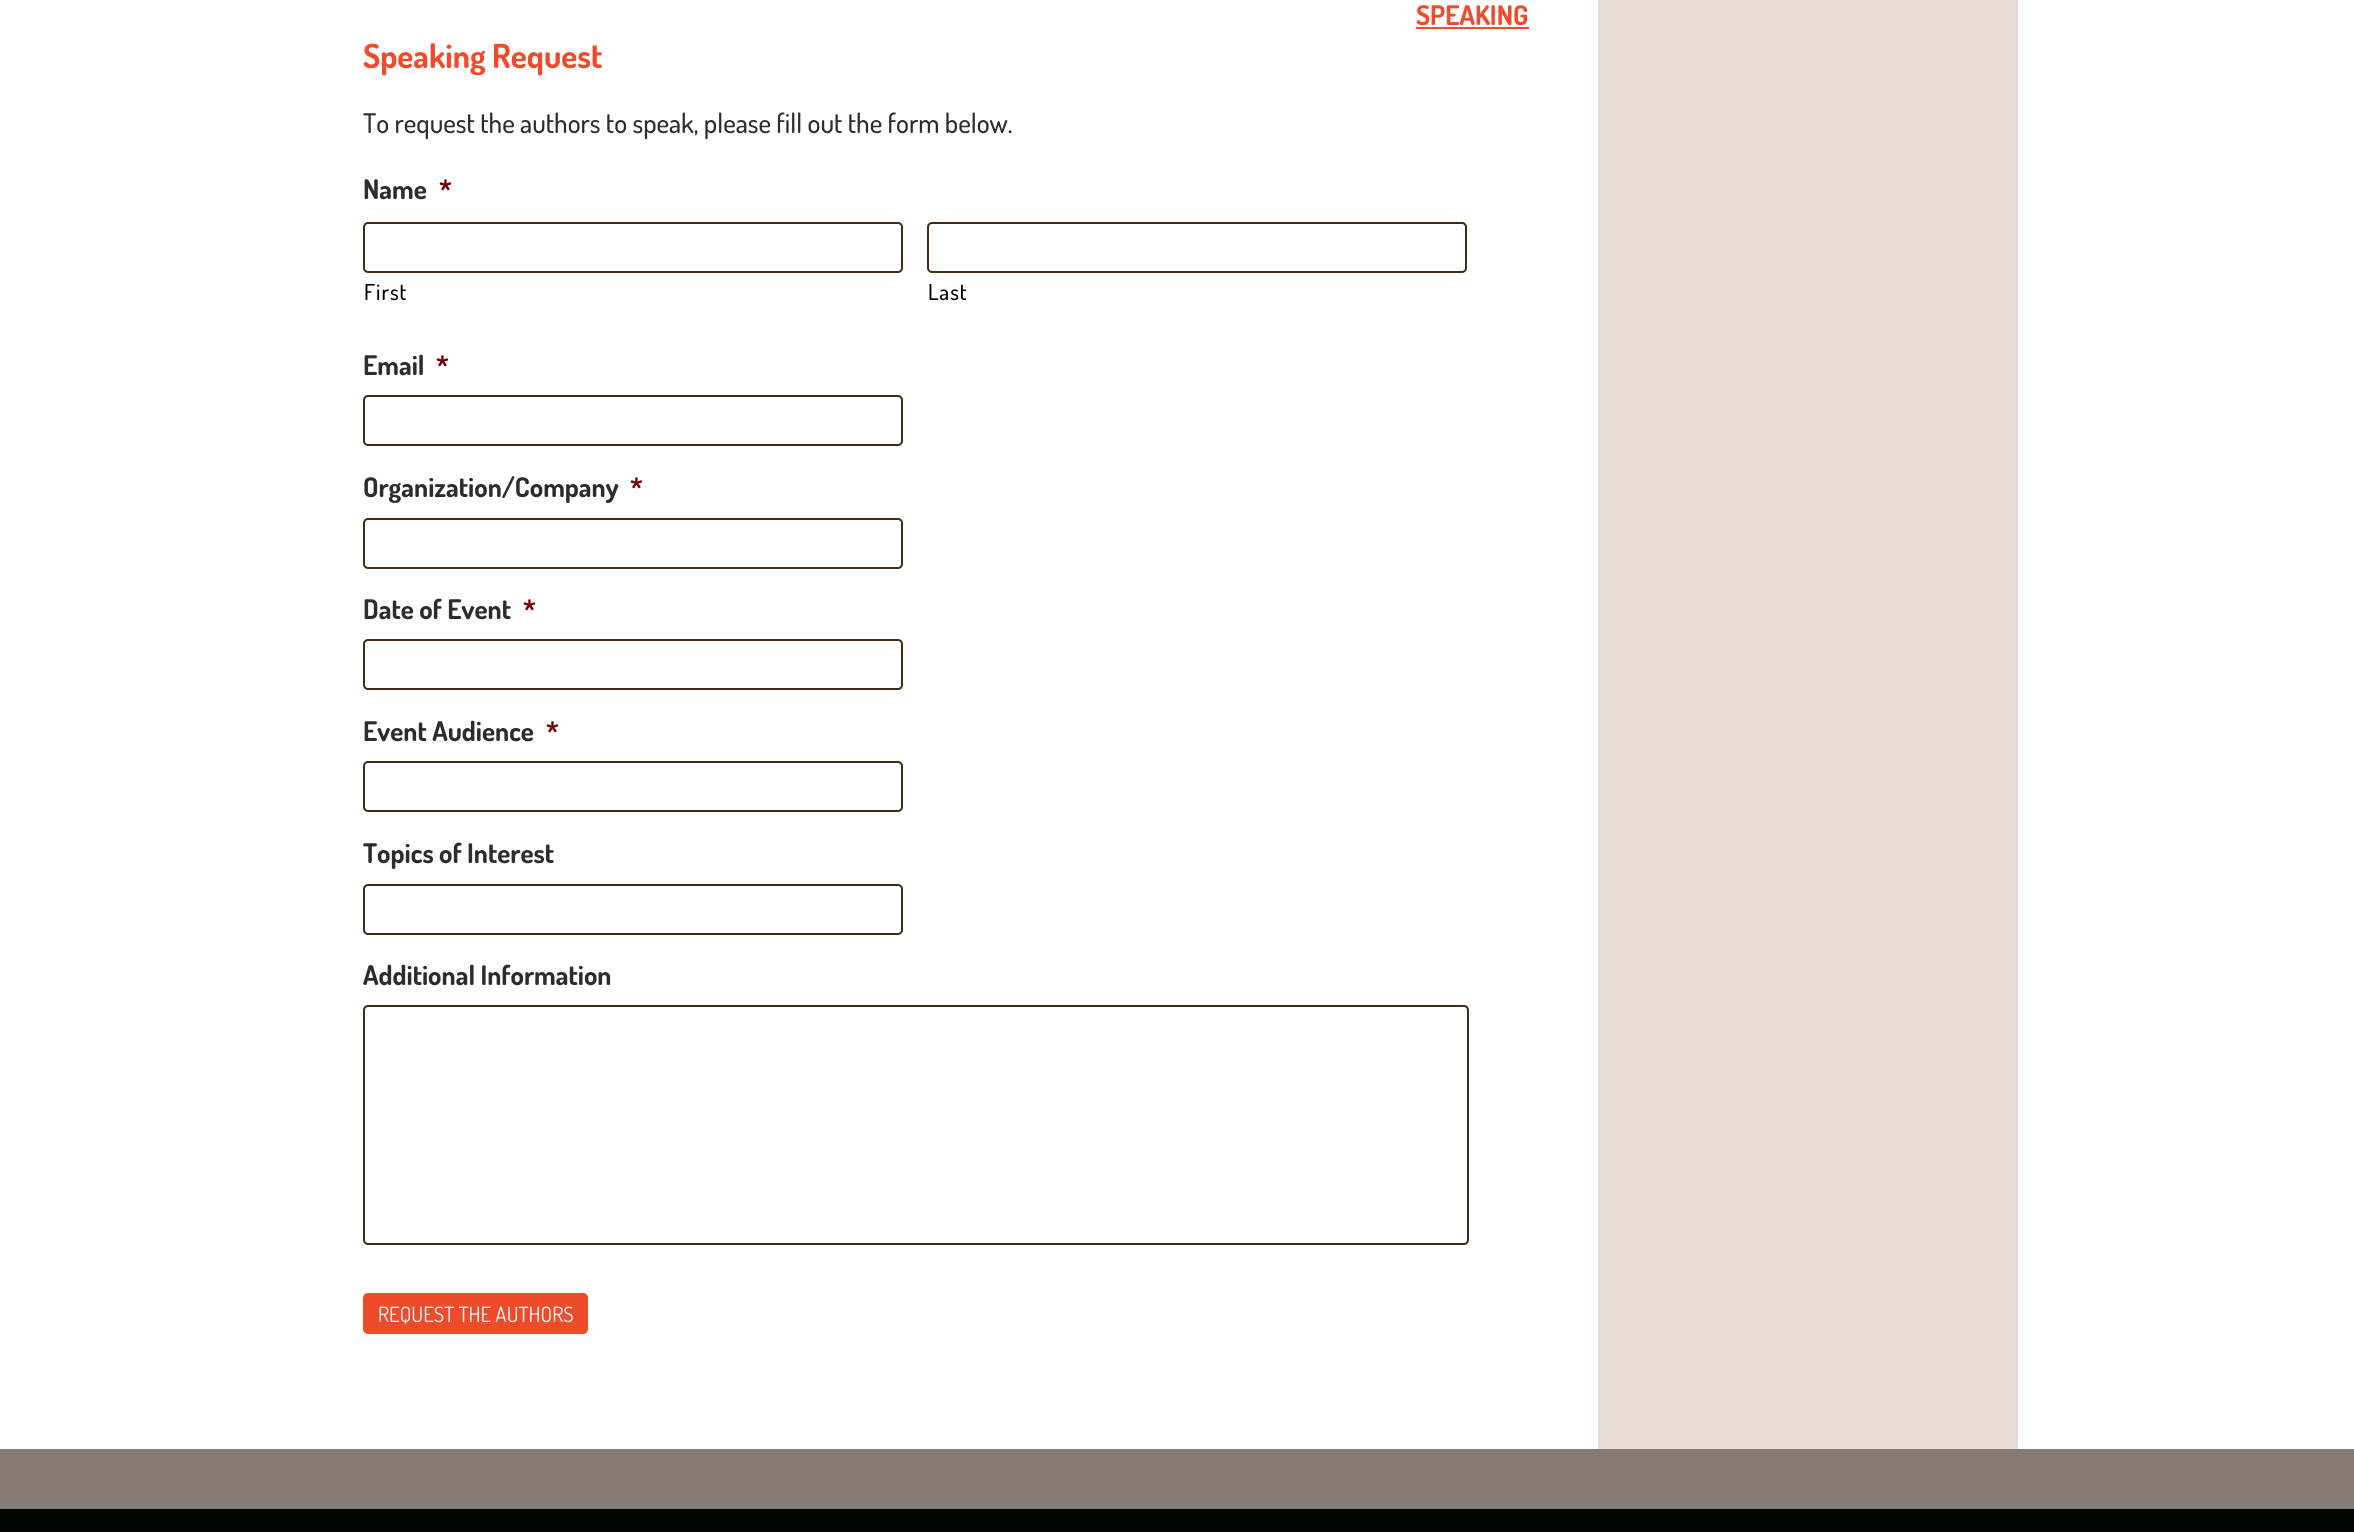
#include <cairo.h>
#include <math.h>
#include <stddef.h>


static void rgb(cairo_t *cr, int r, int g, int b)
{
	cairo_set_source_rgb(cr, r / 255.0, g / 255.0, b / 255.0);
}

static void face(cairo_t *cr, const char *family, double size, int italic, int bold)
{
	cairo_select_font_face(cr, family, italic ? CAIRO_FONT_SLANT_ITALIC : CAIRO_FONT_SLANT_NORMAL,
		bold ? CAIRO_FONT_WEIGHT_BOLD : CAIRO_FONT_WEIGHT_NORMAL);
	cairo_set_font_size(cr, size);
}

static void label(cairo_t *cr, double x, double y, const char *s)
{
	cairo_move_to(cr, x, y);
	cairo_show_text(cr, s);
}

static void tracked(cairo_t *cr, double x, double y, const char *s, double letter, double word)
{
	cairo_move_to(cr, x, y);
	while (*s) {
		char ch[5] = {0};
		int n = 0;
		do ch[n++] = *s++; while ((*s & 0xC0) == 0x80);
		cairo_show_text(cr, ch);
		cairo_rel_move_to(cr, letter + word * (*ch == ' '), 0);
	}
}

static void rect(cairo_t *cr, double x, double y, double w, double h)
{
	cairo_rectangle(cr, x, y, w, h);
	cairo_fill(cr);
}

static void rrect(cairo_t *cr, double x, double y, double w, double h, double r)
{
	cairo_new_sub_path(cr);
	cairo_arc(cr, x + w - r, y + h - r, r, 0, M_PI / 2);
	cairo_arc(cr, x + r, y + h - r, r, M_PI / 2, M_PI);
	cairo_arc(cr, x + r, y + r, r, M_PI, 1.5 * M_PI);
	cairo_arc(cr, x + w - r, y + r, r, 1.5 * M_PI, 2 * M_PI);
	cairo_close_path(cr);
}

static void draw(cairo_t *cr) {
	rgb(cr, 255, 255, 255);
	cairo_paint(cr);
	rgb(cr, 230, 218, 215);
	rect(cr, 1598, 0, 420, 1449);
	face(cr, "Dosis", 27, 0, 1);
	rgb(cr, 238, 75, 42);
	label(cr, 1416, 25, "SPEAKING");
	rect(cr, 1416, 27, 113, 2);
	face(cr, "Dosis", 33, 0, 1);
	label(cr, 363, 68, "Speaking Request");
	face(cr, "Dosis Medium", 27, 0, 0);
	rgb(cr, 43, 44, 44);
	label(cr, 363, 133, "To request the authors to speak, please fill out the form below.");
	face(cr, "Dosis", 27, 0, 1);
	label(cr, 363, 199, "Name");
	rgb(cr, 121, 0, 0);
	label(cr, 439, 199, "*");
	rrect(cr, 364, 223, 538, 49, 4);
	rgb(cr, 67, 42, 19);
	cairo_stroke(cr);
	face(cr, "Dosis Medium", 22, 0, 0);
	rgb(cr, 0, 0, 0);
	tracked(cr, 364, 300, "First", 1, 0);
	rrect(cr, 928, 223, 538, 49, 4);
	rgb(cr, 67, 42, 19);
	cairo_stroke(cr);
	rgb(cr, 0, 0, 0);
	tracked(cr, 928, 300, "Last", 1, 0);
	face(cr, "Dosis", 27, 0, 1);
	rgb(cr, 43, 44, 44);
	label(cr, 363, 375, "Email");
	rgb(cr, 121, 0, 0);
	label(cr, 436, 375, "*");
	rrect(cr, 364, 396, 538, 49, 4);
	rgb(cr, 67, 42, 19);
	cairo_stroke(cr);
	rgb(cr, 43, 44, 44);
	label(cr, 363, 497, "Organization/Company");
	rgb(cr, 121, 0, 0);
	label(cr, 630, 497, "*");
	rrect(cr, 364, 519, 538, 49, 4);
	rgb(cr, 67, 42, 19);
	cairo_stroke(cr);
	rgb(cr, 43, 44, 44);
	label(cr, 363, 619, "Date of Event");
	rgb(cr, 121, 0, 0);
	label(cr, 523, 619, "*");
	rrect(cr, 364, 640, 538, 49, 4);
	rgb(cr, 67, 42, 19);
	cairo_stroke(cr);
	rgb(cr, 43, 44, 44);
	label(cr, 363, 741, "Event Audience");
	rgb(cr, 121, 0, 0);
	label(cr, 546, 741, "*");
	rrect(cr, 364, 762, 538, 49, 4);
	rgb(cr, 67, 42, 19);
	cairo_stroke(cr);
	rgb(cr, 43, 44, 44);
	label(cr, 363, 863, "Topics of Interest");
	rrect(cr, 364, 885, 538, 49, 4);
	rgb(cr, 67, 42, 19);
	cairo_stroke(cr);
	rgb(cr, 43, 44, 44);
	label(cr, 363, 985, "Additional Information");
	rrect(cr, 364, 1006, 1104, 238, 4);
	rgb(cr, 67, 42, 19);
	cairo_stroke(cr);
	rgb(cr, 238, 75, 42);
	rrect(cr, 363, 1293, 225, 41, 5);
	cairo_fill(cr);
	face(cr, "Dosis", 21, 0, 0);
	rgb(cr, 255, 255, 255);
	label(cr, 378, 1322, "REQUEST THE AUTHORS");
	rgb(cr, 0, 7, 0);
	rect(cr, 0, 1509, 2354, 23);
	rgb(cr, 133, 123, 118);
	rect(cr, 0, 1449, 2354, 60);
}

int main(void) {
	cairo_surface_t *surface = cairo_image_surface_create(CAIRO_FORMAT_RGB24, 2354, 1532);
	cairo_t *cr = cairo_create(surface);
	cairo_font_options_t *options = cairo_font_options_create();
	cairo_font_options_set_hint_metrics(options, CAIRO_HINT_METRICS_OFF);
	cairo_font_options_set_hint_style(options, CAIRO_HINT_STYLE_NONE);
	cairo_set_font_options(cr, options);
	cairo_set_miter_limit(cr, 4);
	draw(cr);
	cairo_surface_write_to_png(surface, "render.png");
	cairo_font_options_destroy(options);
	cairo_destroy(cr);
	cairo_surface_destroy(surface);
	return 0;
}
